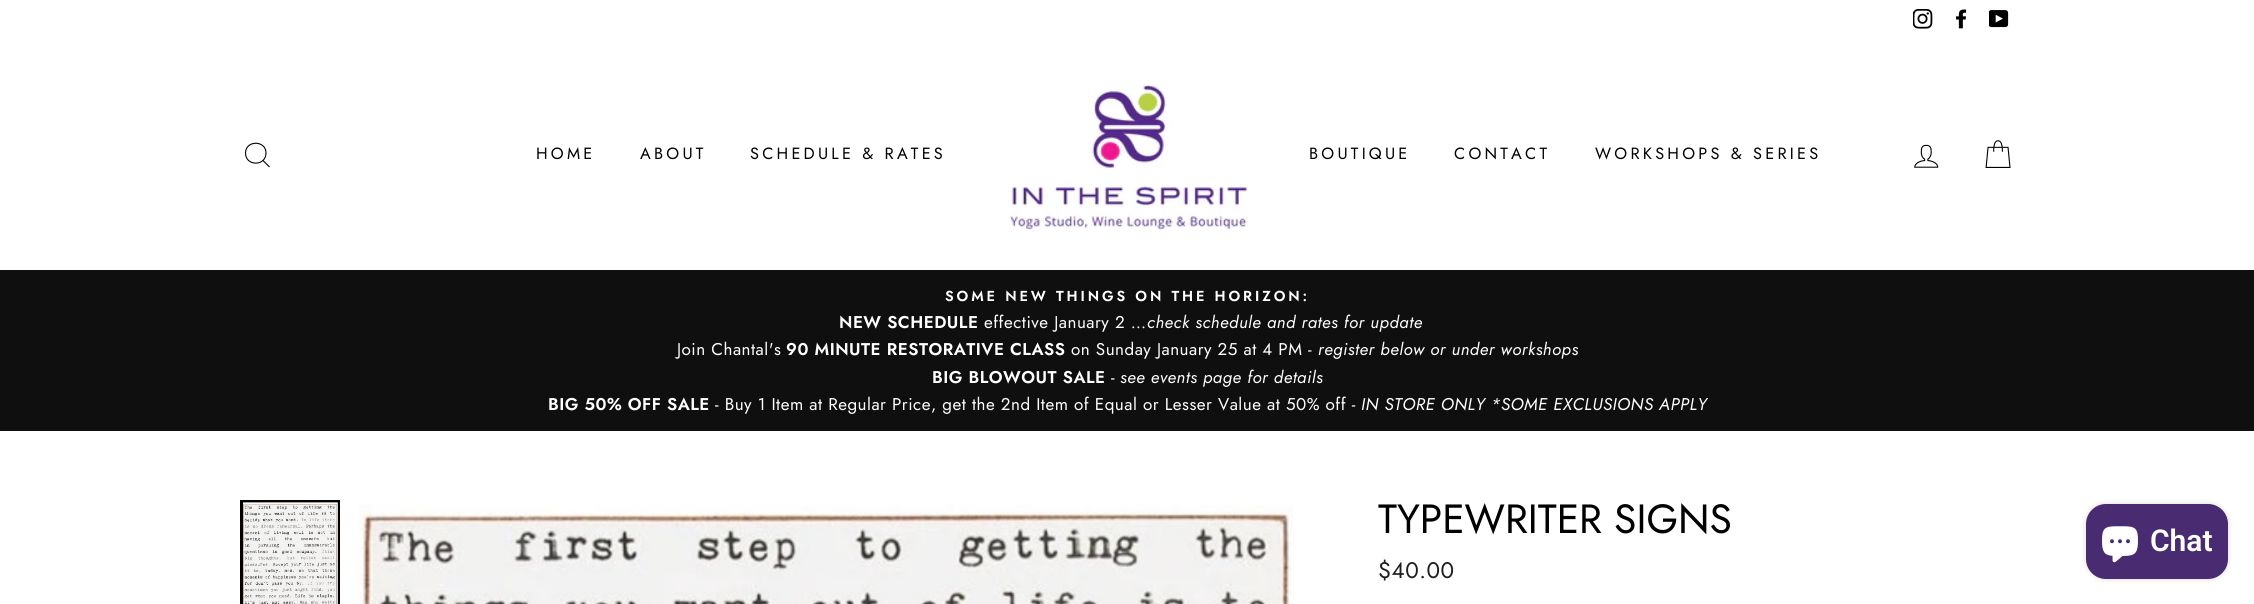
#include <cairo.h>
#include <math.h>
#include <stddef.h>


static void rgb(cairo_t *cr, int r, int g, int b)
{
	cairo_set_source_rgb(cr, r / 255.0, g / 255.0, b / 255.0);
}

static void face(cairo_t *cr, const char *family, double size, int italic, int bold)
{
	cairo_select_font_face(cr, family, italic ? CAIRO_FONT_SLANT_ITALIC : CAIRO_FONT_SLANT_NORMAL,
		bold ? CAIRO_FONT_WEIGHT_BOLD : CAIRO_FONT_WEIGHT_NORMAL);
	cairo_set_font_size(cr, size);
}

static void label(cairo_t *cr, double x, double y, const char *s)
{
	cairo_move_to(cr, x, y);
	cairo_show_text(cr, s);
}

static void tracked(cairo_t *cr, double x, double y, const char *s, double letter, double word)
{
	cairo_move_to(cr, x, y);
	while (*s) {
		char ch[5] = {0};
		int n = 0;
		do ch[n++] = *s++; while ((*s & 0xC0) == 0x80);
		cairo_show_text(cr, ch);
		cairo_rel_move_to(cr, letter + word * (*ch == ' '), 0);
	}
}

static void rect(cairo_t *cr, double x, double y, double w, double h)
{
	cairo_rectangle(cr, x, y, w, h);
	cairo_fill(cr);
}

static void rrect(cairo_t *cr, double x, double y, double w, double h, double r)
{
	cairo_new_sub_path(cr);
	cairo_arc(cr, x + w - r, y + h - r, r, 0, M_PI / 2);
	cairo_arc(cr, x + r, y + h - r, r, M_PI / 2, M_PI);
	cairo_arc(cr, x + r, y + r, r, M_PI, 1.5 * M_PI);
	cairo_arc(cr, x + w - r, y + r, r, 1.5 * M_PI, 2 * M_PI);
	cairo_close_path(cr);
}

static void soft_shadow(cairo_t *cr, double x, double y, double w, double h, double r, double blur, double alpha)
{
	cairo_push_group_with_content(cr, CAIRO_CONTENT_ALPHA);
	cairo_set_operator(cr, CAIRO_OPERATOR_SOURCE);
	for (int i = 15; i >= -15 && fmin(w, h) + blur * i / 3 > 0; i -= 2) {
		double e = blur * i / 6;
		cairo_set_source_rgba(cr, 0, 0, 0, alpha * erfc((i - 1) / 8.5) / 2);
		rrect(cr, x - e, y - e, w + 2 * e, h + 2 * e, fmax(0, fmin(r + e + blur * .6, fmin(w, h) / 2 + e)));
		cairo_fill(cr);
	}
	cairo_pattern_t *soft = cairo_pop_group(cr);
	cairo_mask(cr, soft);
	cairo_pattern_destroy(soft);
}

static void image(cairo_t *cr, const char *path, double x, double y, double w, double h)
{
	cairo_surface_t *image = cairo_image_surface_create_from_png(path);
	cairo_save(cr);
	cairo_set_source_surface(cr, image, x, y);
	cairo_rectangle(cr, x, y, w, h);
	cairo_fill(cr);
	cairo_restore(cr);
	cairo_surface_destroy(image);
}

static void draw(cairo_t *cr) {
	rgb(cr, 255, 255, 255);
	cairo_paint(cr);
	image(cr, "image0.png", 1913, 9, 20, 20);
	image(cr, "image1.png", 1956, 9, 11, 20);
	image(cr, "image2.png", 1989, 10, 20, 18);
	cairo_new_path(cr);
	cairo_move_to(cr, 266, 153);
	cairo_curve_to(cr, 266, 166.5, 245.5, 166.5, 245.5, 153);
	cairo_curve_to(cr, 245.5, 140, 266, 140, 266, 153);
	cairo_close_path(cr);
	cairo_move_to(cr, 269.5, 167);
	cairo_line_to(cr, 263, 160.5);
	rgb(cr, 0, 0, 0);
	cairo_set_line_width(cr, 1.1);
	cairo_stroke(cr);
	face(cr, "Jost", 16.25, 0, 0);
	tracked(cr, 536, 159, "HOME", 3.25, 0);
	tracked(cr, 640, 159, "ABOUT", 3.25, 0);
	tracked(cr, 750, 159, "SCHEDULE & RATES", 3.25, 0);
	image(cr, "image3.png", 1010, 84, 238, 147);
	tracked(cr, 1309, 159, "BOUTIQUE", 3.25, 0);
	tracked(cr, 1454, 159, "CONTACT", 3.25, 0);
	tracked(cr, 1595, 159, "WORKSHOPS & SERIES", 3.25, 0);
	image(cr, "image4.png", 1914, 144, 25, 24);
	image(cr, "image5.png", 1985, 140, 26, 28);
	rgb(cr, 15, 15, 15);
	rect(cr, 0, 270, 2254, 161);
	face(cr, "Jost SemiBold", 14.45, 0, 0);
	rgb(cr, 255, 255, 255);
	tracked(cr, 945, 301, "SOME NEW THINGS ON THE HORIZON:", 2.9, 0);
	face(cr, "Jost SemiBold", 17, 0, 0);
	tracked(cr, 839, 328, "NEW SCHEDULE", 0.5, 0);
	face(cr, "Jost", 17, 0, 0);
	tracked(cr, 984, 328, "effective January 2 …", 0.5, 0);
	face(cr, "Jost", 17, 1, 0);
	tracked(cr, 1147, 328, "check schedule and rates for update", 0.5, 0);
	face(cr, "Jost", 17, 0, 0);
	tracked(cr, 677, 355, "Join Chantal's", 0.5, 0);
	face(cr, "Jost SemiBold", 17, 0, 0);
	tracked(cr, 786, 355, "90 MINUTE RESTORATIVE CLASS", 0.5, 0);
	face(cr, "Jost", 17, 0, 0);
	tracked(cr, 1071, 355, "on Sunday January 25 at 4 PM -", 0.5, 0);
	face(cr, "Jost", 17, 1, 0);
	tracked(cr, 1318, 355, "register below or under workshops", 0.5, 0);
	face(cr, "Jost SemiBold", 17, 0, 0);
	tracked(cr, 932, 383, "BIG BLOWOUT SALE", 0.5, 0);
	face(cr, "Jost", 17, 0, 0);
	tracked(cr, 1111, 383, "-", 0.5, 0);
	face(cr, "Jost", 17, 1, 0);
	tracked(cr, 1120, 383, "see events page for details", 0.5, 0);
	face(cr, "Jost SemiBold", 17, 0, 0);
	tracked(cr, 548, 410, "BIG 50% OFF SALE", 0.5, 0);
	face(cr, "Jost", 17, 0, 0);
	tracked(cr, 715, 410, "- Buy 1 Item at Regular Price, get the 2nd Item of Equal or Lesser Value at 50% off -", 0.5, 0);
	face(cr, "Jost", 17, 1, 0);
	tracked(cr, 1361, 410, "IN STORE ONLY *SOME EXCLUSIONS APPLY", 0.5, 0);
	cairo_rectangle(cr, 241.5, 501.5, 97, 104);
	rgb(cr, 0, 0, 0);
	cairo_set_line_width(cr, 3);
	cairo_stroke(cr);
	image(cr, "image6.png", 243, 502, 95, 102);
	image(cr, "image7.png", 359, 504, 935, 100);
	face(cr, "Jost", 40.75, 0, 0);
	label(cr, 1378, 533, "TYPEWRITER SIGNS");
	face(cr, "Jost", 22.5, 0, 0);
	rgb(cr, 28, 29, 29);
	tracked(cr, 1378, 578, "$40.00", 0.5, 0);
	rgb(cr, 0, 0, 0);
	soft_shadow(cr, 2086, 504, 142, 75, 20, 3, 0.15);
	rgb(cr, 72, 43, 112);
	rrect(cr, 2086, 504, 142, 75, 20);
	cairo_fill(cr);
	image(cr, "image8.png", 2102, 526, 36, 37);
	face(cr, "Roboto SemiBold", 30, 0, 0);
	rgb(cr, 255, 255, 255);
	label(cr, 2150, 551, "Chat");
}

int main(void) {
	cairo_surface_t *surface = cairo_image_surface_create(CAIRO_FORMAT_RGB24, 2254, 604);
	cairo_t *cr = cairo_create(surface);
	cairo_font_options_t *options = cairo_font_options_create();
	cairo_font_options_set_hint_metrics(options, CAIRO_HINT_METRICS_OFF);
	cairo_font_options_set_hint_style(options, CAIRO_HINT_STYLE_NONE);
	cairo_set_font_options(cr, options);
	cairo_set_miter_limit(cr, 4);
	draw(cr);
	cairo_surface_write_to_png(surface, "render.png");
	cairo_font_options_destroy(options);
	cairo_destroy(cr);
	cairo_surface_destroy(surface);
	return 0;
}
